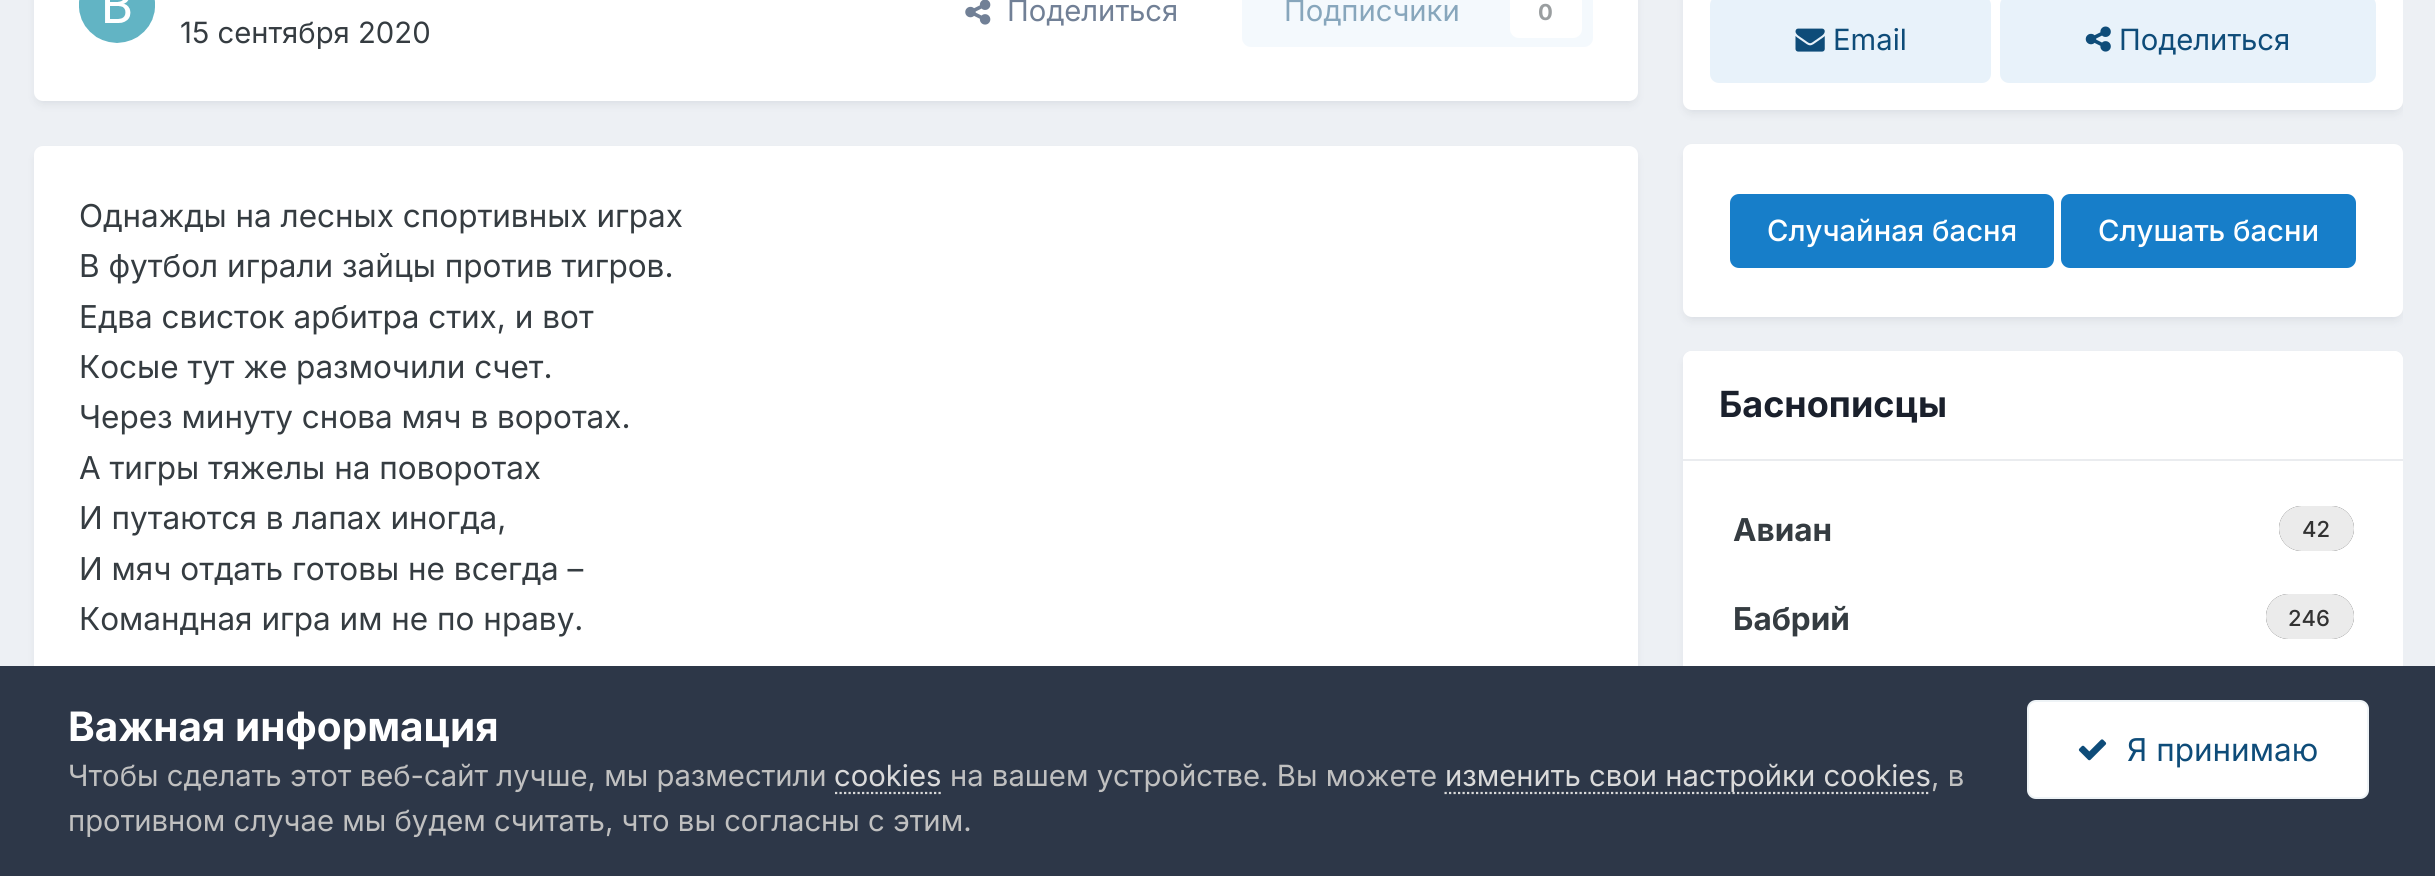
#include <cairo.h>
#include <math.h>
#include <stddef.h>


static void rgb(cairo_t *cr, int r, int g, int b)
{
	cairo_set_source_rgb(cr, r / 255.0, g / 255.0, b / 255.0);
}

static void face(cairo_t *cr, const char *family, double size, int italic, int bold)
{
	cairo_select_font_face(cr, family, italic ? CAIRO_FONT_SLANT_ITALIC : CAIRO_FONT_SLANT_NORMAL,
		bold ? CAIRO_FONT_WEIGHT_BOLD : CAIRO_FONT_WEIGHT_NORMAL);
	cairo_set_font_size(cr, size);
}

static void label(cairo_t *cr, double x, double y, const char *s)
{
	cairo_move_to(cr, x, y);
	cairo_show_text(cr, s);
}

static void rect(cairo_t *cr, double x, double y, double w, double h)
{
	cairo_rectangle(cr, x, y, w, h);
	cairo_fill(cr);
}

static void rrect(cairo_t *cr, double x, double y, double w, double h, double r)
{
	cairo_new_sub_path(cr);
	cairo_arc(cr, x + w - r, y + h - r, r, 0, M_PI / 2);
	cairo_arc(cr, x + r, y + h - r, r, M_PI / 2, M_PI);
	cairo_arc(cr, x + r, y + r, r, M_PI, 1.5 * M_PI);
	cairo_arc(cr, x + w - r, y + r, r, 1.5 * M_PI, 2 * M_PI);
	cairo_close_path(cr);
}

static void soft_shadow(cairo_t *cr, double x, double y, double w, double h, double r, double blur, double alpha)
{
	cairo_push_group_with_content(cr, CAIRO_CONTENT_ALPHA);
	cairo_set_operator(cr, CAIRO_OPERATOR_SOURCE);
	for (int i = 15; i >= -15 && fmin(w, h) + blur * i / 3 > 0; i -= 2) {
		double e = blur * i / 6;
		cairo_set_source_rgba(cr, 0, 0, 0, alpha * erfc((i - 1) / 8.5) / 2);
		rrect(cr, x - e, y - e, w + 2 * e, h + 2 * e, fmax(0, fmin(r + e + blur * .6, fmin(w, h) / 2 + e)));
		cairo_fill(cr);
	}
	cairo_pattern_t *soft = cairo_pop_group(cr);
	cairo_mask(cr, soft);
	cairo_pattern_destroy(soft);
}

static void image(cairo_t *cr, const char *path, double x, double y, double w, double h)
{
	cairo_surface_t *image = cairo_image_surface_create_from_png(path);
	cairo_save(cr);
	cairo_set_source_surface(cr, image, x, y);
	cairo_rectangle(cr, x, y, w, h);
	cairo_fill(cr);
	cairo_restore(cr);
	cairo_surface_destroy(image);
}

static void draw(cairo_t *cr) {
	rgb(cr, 237, 240, 244);
	cairo_paint(cr);
	rgb(cr, 45, 55, 72);
	soft_shadow(cr, 36, -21, 1600, 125, 7, 4.5, 0.1);
	rgb(cr, 255, 255, 255);
	rrect(cr, 34, -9, 1604, 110, 9);
	cairo_fill(cr);
	image(cr, "image0.png", 965, 0, 26, 25);
	face(cr, "Inter", 29.25, 0, 0);
	rgb(cr, 113, 128, 150);
	label(cr, 1007, 21, "Поделиться");
	rgb(cr, 244, 249, 253);
	rrect(cr, 1242, -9, 351, 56, 9);
	cairo_fill(cr);
	rgb(cr, 135, 166, 188);
	label(cr, 1284, 21, "Подписчики");
	rgb(cr, 255, 255, 255);
	rrect(cr, 1510, -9, 72, 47, 9);
	cairo_fill(cr);
	face(cr, "Inter", 22, 0, 1);
	rgb(cr, 154, 158, 160);
	label(cr, 1538, 20, "0");
	image(cr, "image1.png", 79, 0, 76, 43);
	face(cr, "Inter", 29.25, 0, 0);
	rgb(cr, 53, 60, 65);
	label(cr, 180, 43, "15 сентября 2020");
	rgb(cr, 45, 55, 72);
	soft_shadow(cr, 36, 153, 1600, 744, 7, 4.5, 0.1);
	rgb(cr, 255, 255, 255);
	rrect(cr, 34, 146, 1604, 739, 9);
	cairo_fill(cr);
	face(cr, "Inter", 31.5, 0, 0);
	rgb(cr, 53, 60, 65);
	label(cr, 79, 227, "Однажды на лесных спортивных играх");
	label(cr, 79, 277, "В футбол играли зайцы против тигров.");
	label(cr, 79, 328, "Едва свисток арбитра стих, и вот");
	label(cr, 79, 378, "Косые тут же размочили счет.");
	label(cr, 79, 428, "Через минуту снова мяч в воротах.");
	label(cr, 79, 479, "А тигры тяжелы на поворотах");
	label(cr, 79, 529, "И путаются в лапах иногда,");
	label(cr, 79, 580, "И мяч отдать готовы не всегда –");
	label(cr, 79, 630, "Командная игра им не по нраву.");
	cairo_save(cr);
	cairo_rectangle(cr, 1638, 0, 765, 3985);
	cairo_clip(cr);
	rgb(cr, 45, 55, 72);
	soft_shadow(cr, 1685, -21, 716, 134, 7, 4.5, 0.1);
	cairo_restore(cr);
	rgb(cr, 255, 255, 255);
	rrect(cr, 1683, -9, 720, 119, 9);
	cairo_fill(cr);
	rgb(cr, 232, 242, 250);
	rrect(cr, 1710, -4, 281, 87, 9);
	cairo_fill(cr);
	image(cr, "image2.png", 1795, 28, 30, 24);
	face(cr, "Inter", 29.25, 0, 0);
	rgb(cr, 14, 76, 121);
	label(cr, 1833, 50, "Email");
	rgb(cr, 232, 242, 250);
	rrect(cr, 2000, -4, 376, 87, 9);
	cairo_fill(cr);
	image(cr, "image3.png", 2085, 26, 26, 26);
	rgb(cr, 14, 76, 121);
	label(cr, 2119, 50, "Поделиться");
	cairo_save(cr);
	cairo_rectangle(cr, 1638, 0, 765, 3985);
	cairo_clip(cr);
	rgb(cr, 45, 55, 72);
	soft_shadow(cr, 1685, 151, 716, 169, 7, 4.5, 0.1);
	cairo_restore(cr);
	rgb(cr, 255, 255, 255);
	rrect(cr, 1683, 144, 720, 173, 9);
	cairo_fill(cr);
	rgb(cr, 23, 126, 201);
	rrect(cr, 1730, 194, 324, 74, 9);
	cairo_fill(cr);
	face(cr, "Inter Medium", 29.25, 0, 0);
	rgb(cr, 255, 255, 255);
	label(cr, 1767, 241, "Случайная басня");
	rgb(cr, 23, 126, 201);
	rrect(cr, 2061, 194, 295, 74, 9);
	cairo_fill(cr);
	rgb(cr, 255, 255, 255);
	label(cr, 2098, 241, "Слушать басни");
	cairo_save(cr);
	cairo_rectangle(cr, 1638, 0, 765, 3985);
	cairo_clip(cr);
	rgb(cr, 45, 55, 72);
	soft_shadow(cr, 1685, 358, 716, 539, 7, 4.5, 0.1);
	cairo_restore(cr);
	rrect(cr, 1683, 351, 720, 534, 9);
	cairo_fill(cr);
	cairo_new_path(cr);
	cairo_move_to(cr, 1692, 351);
	cairo_line_to(cr, 2394, 351);
	cairo_curve_to(cr, 2399, 351, 2403, 355, 2403, 360);
	cairo_line_to(cr, 2403, 461);
	cairo_line_to(cr, 1683, 461);
	cairo_line_to(cr, 1683, 360);
	cairo_curve_to(cr, 1683, 355, 1687, 351, 1692, 351);
	cairo_close_path(cr);
	cairo_fill(cr);
	rgb(cr, 234, 236, 239);
	rect(cr, 1683, 459, 720, 2);
	face(cr, "Inter", 36, 0, 1);
	rgb(cr, 26, 32, 44);
	label(cr, 1719, 417, "Баснописцы");
	face(cr, "Inter", 31.5, 0, 1);
	rgb(cr, 53, 60, 65);
	label(cr, 1733, 541, "Авиан");
	rgb(cr, 50, 50, 50);
	rrect(cr, 2279, 506, 75, 45, 22.5);
	cairo_fill(cr);
	cairo_set_source_rgba(cr, 1, 1, 1, 0.9);
	rrect(cr, 2279, 506, 75, 45, 22.5);
	cairo_fill(cr);
	face(cr, "Inter Medium", 22, 0, 0);
	rgb(cr, 50, 50, 50);
	label(cr, 2302, 537, "42");
	face(cr, "Inter", 31.5, 0, 1);
	rgb(cr, 53, 60, 65);
	label(cr, 1733, 630, "Бабрий");
	rgb(cr, 50, 50, 50);
	rrect(cr, 2266, 594, 88, 45, 22.5);
	cairo_fill(cr);
	cairo_set_source_rgba(cr, 1, 1, 1, 0.9);
	rrect(cr, 2266, 594, 88, 45, 22.5);
	cairo_fill(cr);
	face(cr, "Inter Medium", 22, 0, 0);
	rgb(cr, 50, 50, 50);
	label(cr, 2288, 626, "246");
	rgb(cr, 45, 55, 72);
	rect(cr, 0, 666, 2435, 210);
	face(cr, "Inter", 40.5, 0, 1);
	rgb(cr, 255, 255, 255);
	label(cr, 68, 741, "Важная информация");
	face(cr, "Inter", 29.25, 0, 0);
	rgb(cr, 192, 192, 192);
	label(cr, 68, 786, "Чтобы сделать этот веб-сайт лучше, мы разместили");
	rgb(cr, 218, 218, 218);
	label(cr, 834, 786, "cookies");
	cairo_new_path(cr);
	cairo_move_to(cr, 835, 793);
	cairo_line_to(cr, 943, 793);
	cairo_set_line_width(cr, 2.2);
	cairo_set_dash(cr, (double[]){2.25, 2.25}, 2, 0);
	cairo_stroke(cr);
	rgb(cr, 192, 192, 192);
	label(cr, 950, 786, "на вашем устройстве. Вы можете");
	cairo_new_path(cr);
	cairo_move_to(cr, 1444.5, 793);
	cairo_line_to(cr, 1930.5, 793);
	rgb(cr, 218, 218, 218);
	cairo_stroke(cr);
	label(cr, 1445, 786, "изменить свои настройки cookies");
	rgb(cr, 192, 192, 192);
	label(cr, 1931, 786, ", в");
	label(cr, 68, 831, "противном случае мы будем считать, что вы согласны с этим.");
	rgb(cr, 255, 255, 255);
	rrect(cr, 2027, 700, 342, 99, 9);
	cairo_fill(cr);
	rrect(cr, 2028, 701, 340, 97, 8);
	cairo_set_source_rgba(cr, 0.055, 0.298, 0.475, 0.07);
	cairo_set_line_width(cr, 2);
	cairo_set_dash(cr, NULL, 0, 0);
	cairo_stroke(cr);
	image(cr, "image4.png", 2078, 739, 29, 22);
	face(cr, "Inter", 31.5, 0, 0);
	rgb(cr, 14, 76, 121);
	label(cr, 2127, 761, "Я принимаю");
}

int main(void) {
	cairo_surface_t *surface = cairo_image_surface_create(CAIRO_FORMAT_RGB24, 2435, 876);
	cairo_t *cr = cairo_create(surface);
	cairo_font_options_t *options = cairo_font_options_create();
	cairo_font_options_set_hint_metrics(options, CAIRO_HINT_METRICS_OFF);
	cairo_font_options_set_hint_style(options, CAIRO_HINT_STYLE_NONE);
	cairo_set_font_options(cr, options);
	cairo_set_miter_limit(cr, 4);
	draw(cr);
	cairo_surface_write_to_png(surface, "render.png");
	cairo_font_options_destroy(options);
	cairo_destroy(cr);
	cairo_surface_destroy(surface);
	return 0;
}
